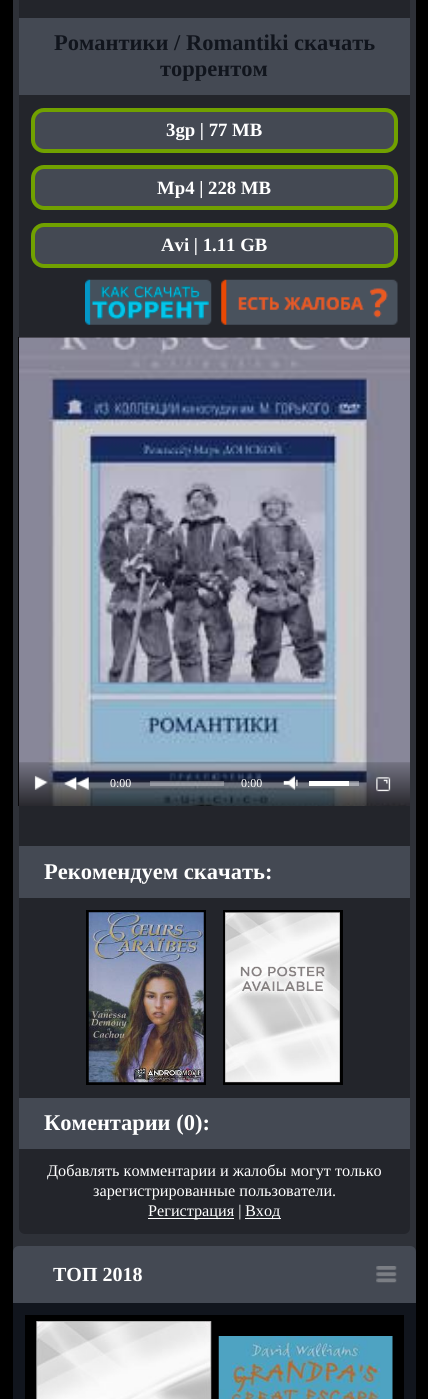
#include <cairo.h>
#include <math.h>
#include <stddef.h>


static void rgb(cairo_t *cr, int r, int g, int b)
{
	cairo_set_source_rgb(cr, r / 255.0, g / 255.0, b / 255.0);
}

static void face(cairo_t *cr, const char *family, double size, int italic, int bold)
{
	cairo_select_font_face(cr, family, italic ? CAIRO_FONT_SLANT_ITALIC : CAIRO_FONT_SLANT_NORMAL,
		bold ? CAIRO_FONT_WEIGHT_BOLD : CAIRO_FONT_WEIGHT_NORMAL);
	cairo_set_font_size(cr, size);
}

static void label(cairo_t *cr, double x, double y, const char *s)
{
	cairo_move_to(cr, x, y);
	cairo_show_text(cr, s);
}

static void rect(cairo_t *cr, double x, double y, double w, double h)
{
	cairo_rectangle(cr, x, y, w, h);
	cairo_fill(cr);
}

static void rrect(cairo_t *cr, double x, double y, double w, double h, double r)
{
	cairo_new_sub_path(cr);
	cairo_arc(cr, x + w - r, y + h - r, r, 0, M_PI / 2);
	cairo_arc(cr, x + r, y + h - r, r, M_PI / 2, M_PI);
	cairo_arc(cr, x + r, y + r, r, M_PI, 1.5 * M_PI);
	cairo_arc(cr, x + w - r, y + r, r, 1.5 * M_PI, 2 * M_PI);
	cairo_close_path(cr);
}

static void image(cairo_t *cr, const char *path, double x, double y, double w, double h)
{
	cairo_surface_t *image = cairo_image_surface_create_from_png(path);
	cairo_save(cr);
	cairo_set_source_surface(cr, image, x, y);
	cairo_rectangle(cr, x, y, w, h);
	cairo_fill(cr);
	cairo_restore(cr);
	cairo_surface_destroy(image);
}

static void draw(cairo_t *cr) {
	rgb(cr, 0, 0, 0);
	cairo_paint(cr);
	rgb(cr, 46, 49, 56);
	rect(cr, 13, 0, 403, 1252);
	rgb(cr, 35, 37, 43);
	rrect(cr, 19, -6, 391, 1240, 6);
	cairo_fill(cr);
	rgb(cr, 68, 73, 83);
	rect(cr, 19, 18, 391, 77);
	face(cr, "Liberation Serif", 22.5, 0, 1);
	rgb(cr, 17, 21, 29);
	label(cr, 54, 50, "Романтики / Romantiki скачать");
	label(cr, 160, 76, "торрентом");
	rgb(cr, 68, 73, 83);
	rrect(cr, 33, 110, 363, 41, 11);
	cairo_fill_preserve(cr);
	rgb(cr, 113, 161, 0);
	cairo_set_line_width(cr, 4);
	cairo_stroke(cr);
	face(cr, "Liberation Serif", 18.75, 0, 1);
	rgb(cr, 255, 255, 255);
	label(cr, 166, 136, "3gp | 77 MB");
	rgb(cr, 68, 73, 83);
	rrect(cr, 33, 167, 363, 41, 11);
	cairo_fill_preserve(cr);
	rgb(cr, 113, 161, 0);
	cairo_stroke(cr);
	rgb(cr, 255, 255, 255);
	label(cr, 157, 194, "Mp4 | 228 MB");
	rgb(cr, 68, 73, 83);
	rrect(cr, 33, 225, 363, 41, 11);
	cairo_fill_preserve(cr);
	rgb(cr, 113, 161, 0);
	cairo_stroke(cr);
	rgb(cr, 255, 255, 255);
	label(cr, 161, 251, "Avi | 1.11 GB");
	image(cr, "image0.png", 85, 279, 127, 46);
	image(cr, "image1.png", 221, 279, 177, 46);
	rgb(cr, 0, 0, 0);
	rect(cr, 18, 337, 392, 469);
	image(cr, "image2.png", 18, 337, 392, 469);
	image(cr, "image3.png", 19, 762, 391, 44);
	image(cr, "image4.png", 34, 775, 14, 15);
	image(cr, "image5.png", 63, 777, 27, 13);
	face(cr, "Liberation Serif", 12, 0, 0);
	rgb(cr, 255, 255, 255);
	label(cr, 110, 787, "0:00");
	cairo_set_source_rgba(cr, 1, 1, 1, 0.3);
	rect(cr, 150, 781, 74, 5);
	rgb(cr, 255, 255, 255);
	label(cr, 241, 787, "0:00");
	image(cr, "image6.png", 283, 775, 16, 15);
	rect(cr, 309, 781, 40, 5);
	cairo_set_source_rgba(cr, 1, 1, 1, 0.4);
	rect(cr, 349, 781, 10, 5);
	image(cr, "image7.png", 376, 777, 15, 15);
	rgb(cr, 68, 73, 83);
	rect(cr, 19, 846, 391, 52);
	face(cr, "Liberation Serif", 22.5, 0, 1);
	rgb(cr, 255, 255, 255);
	label(cr, 44, 879, "Рекомендуем скачать:");
	rgb(cr, 0, 0, 0);
	rect(cr, 86, 910, 120, 175);
	image(cr, "image8.png", 88, 912, 116, 171);
	rect(cr, 223, 910, 120, 175);
	image(cr, "image9.png", 225, 912, 115, 171);
	rgb(cr, 68, 73, 83);
	rect(cr, 19, 1098, 391, 51);
	rgb(cr, 255, 255, 255);
	label(cr, 44, 1130, "Коментарии (0):");
	face(cr, "Liberation Serif", 16.25, 0, 0);
	label(cr, 47, 1176, "Добавлять комментарии и жалобы могут только");
	label(cr, 93, 1196, "зарегистрированные пользователи.");
	rect(cr, 148, 1218, 86, 1);
	label(cr, 148, 1216, "Регистрация |");
	rect(cr, 245, 1218, 36, 1);
	label(cr, 245, 1216, "Вход");
	rgb(cr, 68, 73, 83);
	cairo_new_path(cr);
	cairo_move_to(cr, 19, 1246);
	cairo_line_to(cr, 410, 1246);
	cairo_curve_to(cr, 413.5, 1246, 416, 1248.5, 416, 1252);
	cairo_line_to(cr, 416, 1303);
	cairo_line_to(cr, 13, 1303);
	cairo_line_to(cr, 13, 1252);
	cairo_curve_to(cr, 13, 1248.5, 15.5, 1246, 19, 1246);
	cairo_close_path(cr);
	cairo_fill(cr);
	face(cr, "Liberation Serif", 20, 0, 1);
	rgb(cr, 255, 255, 255);
	label(cr, 53, 1281, "ТОП 2018");
	image(cr, "image10.png", 376, 1266, 21, 17);
	rgb(cr, 17, 21, 29);
	rect(cr, 13, 1303, 403, 96);
	rgb(cr, 0, 0, 0);
	rect(cr, 25, 1315, 379, 84);
	image(cr, "image11.png", 36, 1321, 176, 78);
	image(cr, "image12.png", 218, 1336, 175, 63);
}

int main(void) {
	cairo_surface_t *surface = cairo_image_surface_create(CAIRO_FORMAT_RGB24, 428, 1399);
	cairo_t *cr = cairo_create(surface);
	cairo_font_options_t *options = cairo_font_options_create();
	cairo_font_options_set_hint_metrics(options, CAIRO_HINT_METRICS_OFF);
	cairo_font_options_set_hint_style(options, CAIRO_HINT_STYLE_NONE);
	cairo_set_font_options(cr, options);
	cairo_set_miter_limit(cr, 4);
	draw(cr);
	cairo_surface_write_to_png(surface, "render.png");
	cairo_font_options_destroy(options);
	cairo_destroy(cr);
	cairo_surface_destroy(surface);
	return 0;
}
